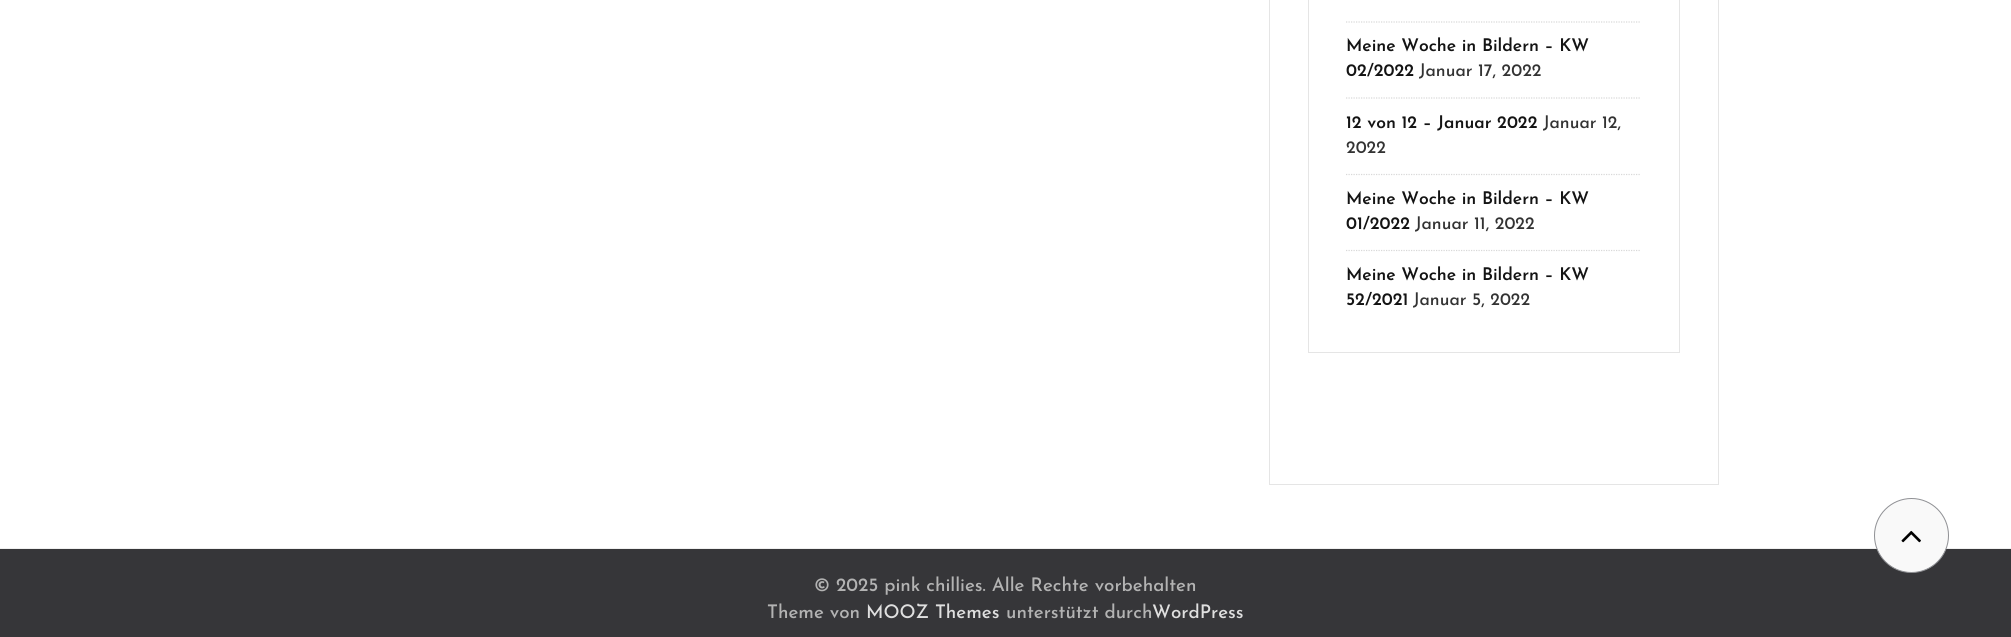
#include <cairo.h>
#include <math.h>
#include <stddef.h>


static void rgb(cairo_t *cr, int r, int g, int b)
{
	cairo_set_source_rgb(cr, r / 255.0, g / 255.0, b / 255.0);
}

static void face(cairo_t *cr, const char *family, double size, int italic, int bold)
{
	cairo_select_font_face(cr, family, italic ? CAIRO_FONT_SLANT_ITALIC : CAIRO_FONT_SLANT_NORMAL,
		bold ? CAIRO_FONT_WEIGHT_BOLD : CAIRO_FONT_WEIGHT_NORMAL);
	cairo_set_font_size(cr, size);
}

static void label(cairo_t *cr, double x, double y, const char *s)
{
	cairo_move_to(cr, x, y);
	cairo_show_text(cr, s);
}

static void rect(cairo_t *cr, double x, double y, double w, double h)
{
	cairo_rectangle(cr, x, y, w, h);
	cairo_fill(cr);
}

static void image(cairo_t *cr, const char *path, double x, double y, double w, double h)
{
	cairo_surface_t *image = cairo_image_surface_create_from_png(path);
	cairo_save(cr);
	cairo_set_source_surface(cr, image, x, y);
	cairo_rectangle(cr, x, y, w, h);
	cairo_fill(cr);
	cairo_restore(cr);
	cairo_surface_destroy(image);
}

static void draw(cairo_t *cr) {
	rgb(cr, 255, 255, 255);
	cairo_paint(cr);
	cairo_rectangle(cr, 1269.5, -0.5, 449, 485);
	rgb(cr, 229, 229, 229);
	cairo_set_line_width(cr, 1);
	cairo_stroke(cr);
	cairo_rectangle(cr, 1308.5, -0.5, 371, 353);
	cairo_stroke(cr);
	cairo_new_path(cr);
	cairo_move_to(cr, 1346, 22);
	cairo_line_to(cr, 1641, 22);
	rgb(cr, 216, 216, 216);
	cairo_set_line_width(cr, 1.2);
	cairo_set_dash(cr, (double[]){1.25, 1.25}, 2, 0);
	cairo_stroke(cr);
	cairo_new_path(cr);
	cairo_move_to(cr, 1346, 98);
	cairo_line_to(cr, 1641, 98);
	cairo_stroke(cr);
	face(cr, "Josefin Sans SemiBold", 17.5, 0, 0);
	rgb(cr, 20, 20, 20);
	label(cr, 1346, 51, "Meine Woche in Bildern – KW");
	label(cr, 1346, 76, "02/2022");
	face(cr, "Josefin Sans Medium", 17.5, 0, 0);
	rgb(cr, 51, 51, 51);
	label(cr, 1419, 76, "Januar 17, 2022");
	cairo_new_path(cr);
	cairo_move_to(cr, 1346, 174.5);
	cairo_line_to(cr, 1641, 174.5);
	rgb(cr, 216, 216, 216);
	cairo_stroke(cr);
	face(cr, "Josefin Sans SemiBold", 17.5, 0, 0);
	rgb(cr, 20, 20, 20);
	label(cr, 1346, 128, "12 von 12 – Januar 2022");
	face(cr, "Josefin Sans Medium", 17.5, 0, 0);
	rgb(cr, 51, 51, 51);
	label(cr, 1543, 128, "Januar 12,");
	label(cr, 1346, 153, "2022");
	cairo_new_path(cr);
	cairo_move_to(cr, 1346, 250.5);
	cairo_line_to(cr, 1641, 250.5);
	rgb(cr, 216, 216, 216);
	cairo_stroke(cr);
	face(cr, "Josefin Sans SemiBold", 17.5, 0, 0);
	rgb(cr, 20, 20, 20);
	label(cr, 1346, 204, "Meine Woche in Bildern – KW");
	label(cr, 1346, 229, "01/2022");
	face(cr, "Josefin Sans Medium", 17.5, 0, 0);
	rgb(cr, 51, 51, 51);
	label(cr, 1415, 229, "Januar 11, 2022");
	face(cr, "Josefin Sans SemiBold", 17.5, 0, 0);
	rgb(cr, 20, 20, 20);
	label(cr, 1346, 280, "Meine Woche in Bildern – KW");
	label(cr, 1346, 305, "52/2021");
	face(cr, "Josefin Sans Medium", 17.5, 0, 0);
	rgb(cr, 51, 51, 51);
	label(cr, 1413, 305, "Januar 5, 2022");
	rgb(cr, 239, 239, 239);
	rect(cr, 0, 548, 2011, 1);
	rgb(cr, 54, 54, 57);
	rect(cr, 0, 549, 2011, 88);
	rgb(cr, 249, 249, 249);
	cairo_new_path(cr);
	cairo_arc(cr, 1911.5, 535.5, 37, 0, 2 * M_PI);
	cairo_fill_preserve(cr);
	rgb(cr, 143, 144, 148);
	cairo_set_line_width(cr, 1);
	cairo_set_dash(cr, NULL, 0, 0);
	cairo_stroke(cr);
	image(cr, "image0.png", 1901, 530, 20, 13);
	face(cr, "Josefin Sans Medium", 18.75, 0, 0);
	rgb(cr, 179, 179, 179);
	label(cr, 814, 591, "© 2025 pink chillies. Alle Rechte vorbehalten");
	label(cr, 767, 618, "Theme von");
	rgb(cr, 223, 223, 223);
	label(cr, 866, 618, "MOOZ Themes");
	rgb(cr, 179, 179, 179);
	label(cr, 1006, 618, "unterstützt durch");
	rgb(cr, 223, 223, 223);
	label(cr, 1152, 618, "WordPress");
}

int main(void) {
	cairo_surface_t *surface = cairo_image_surface_create(CAIRO_FORMAT_RGB24, 2011, 637);
	cairo_t *cr = cairo_create(surface);
	cairo_font_options_t *options = cairo_font_options_create();
	cairo_font_options_set_hint_metrics(options, CAIRO_HINT_METRICS_OFF);
	cairo_font_options_set_hint_style(options, CAIRO_HINT_STYLE_NONE);
	cairo_set_font_options(cr, options);
	cairo_set_miter_limit(cr, 4);
	draw(cr);
	cairo_surface_write_to_png(surface, "render.png");
	cairo_font_options_destroy(options);
	cairo_destroy(cr);
	cairo_surface_destroy(surface);
	return 0;
}
